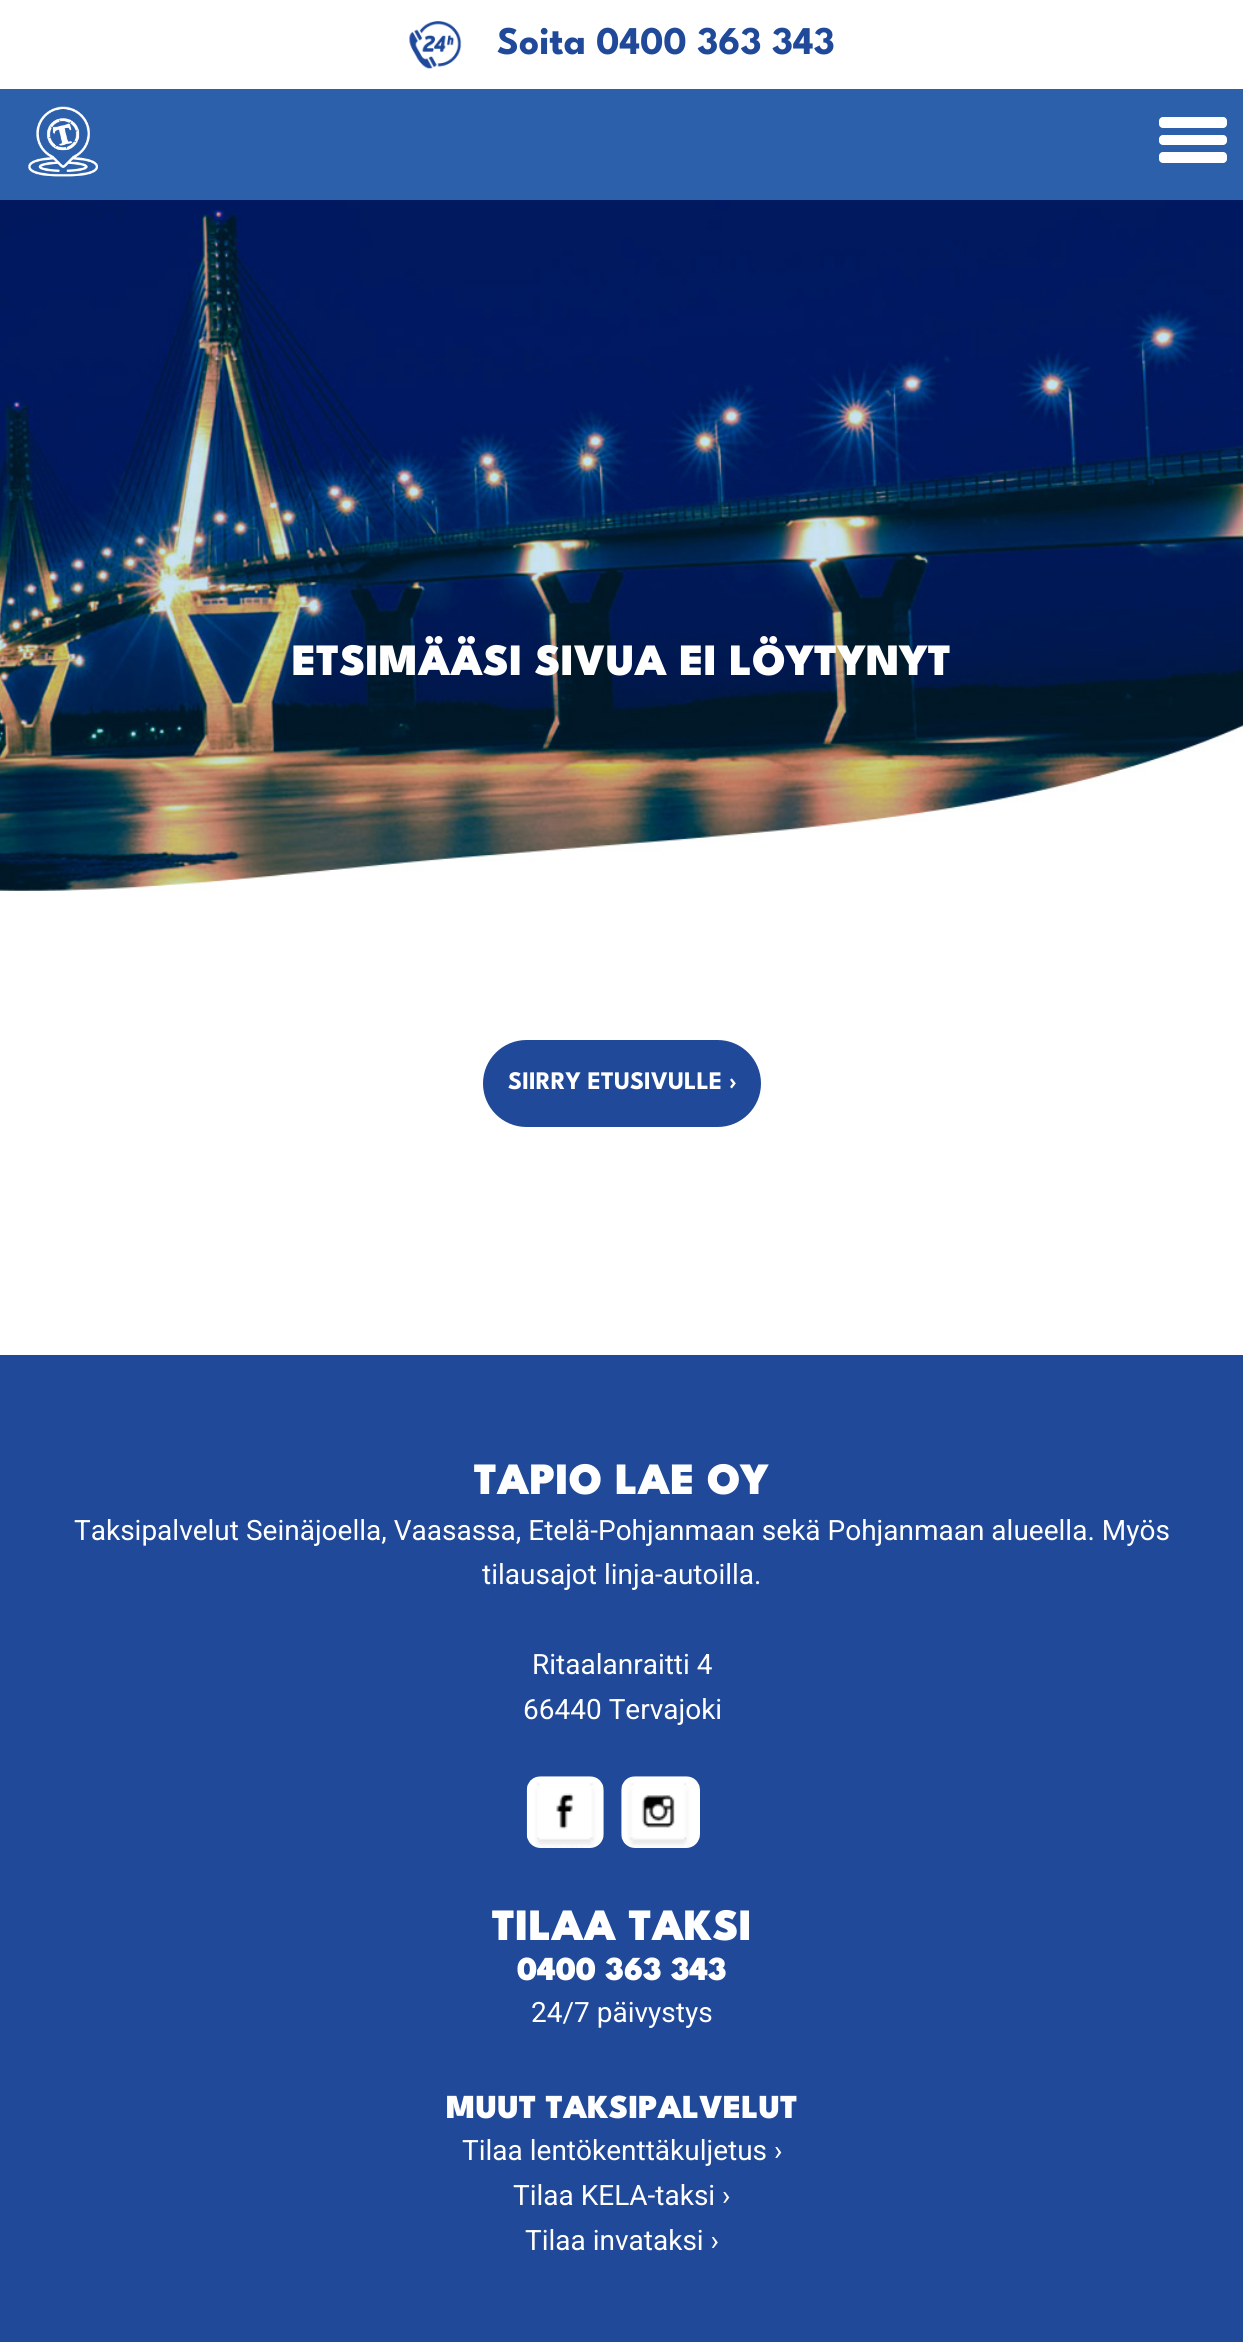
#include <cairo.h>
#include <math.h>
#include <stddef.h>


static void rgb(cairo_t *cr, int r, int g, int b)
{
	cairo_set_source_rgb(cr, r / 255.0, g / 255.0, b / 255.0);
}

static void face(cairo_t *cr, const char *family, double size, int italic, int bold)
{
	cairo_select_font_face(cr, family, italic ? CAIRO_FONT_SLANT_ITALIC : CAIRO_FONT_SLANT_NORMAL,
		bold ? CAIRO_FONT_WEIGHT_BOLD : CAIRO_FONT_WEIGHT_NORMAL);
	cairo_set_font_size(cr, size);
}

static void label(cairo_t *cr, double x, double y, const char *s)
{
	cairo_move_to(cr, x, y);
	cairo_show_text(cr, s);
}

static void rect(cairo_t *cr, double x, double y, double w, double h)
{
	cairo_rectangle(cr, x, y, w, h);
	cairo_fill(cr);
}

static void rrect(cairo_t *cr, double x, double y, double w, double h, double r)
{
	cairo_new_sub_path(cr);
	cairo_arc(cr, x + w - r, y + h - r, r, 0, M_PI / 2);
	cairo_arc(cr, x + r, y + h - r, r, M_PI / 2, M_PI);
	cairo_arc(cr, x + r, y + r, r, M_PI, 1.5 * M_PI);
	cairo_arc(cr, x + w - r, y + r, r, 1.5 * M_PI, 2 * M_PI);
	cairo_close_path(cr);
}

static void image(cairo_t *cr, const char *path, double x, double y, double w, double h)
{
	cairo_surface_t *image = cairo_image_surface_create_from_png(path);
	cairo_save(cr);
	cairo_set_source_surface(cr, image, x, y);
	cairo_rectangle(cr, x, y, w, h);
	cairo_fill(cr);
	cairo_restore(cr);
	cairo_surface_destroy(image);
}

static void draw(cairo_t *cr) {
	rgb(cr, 255, 255, 255);
	cairo_paint(cr);
	image(cr, "image0.png", 409, 21, 53, 48);
	face(cr, "League Spartan Thin", 39.25, 0, 0);
	rgb(cr, 32, 73, 153);
	label(cr, 497, 54, "Soita 0400 363 343");
	rgb(cr, 44, 96, 171);
	rect(cr, 0, 89, 1243, 111);
	rgb(cr, 255, 255, 255);
	rrect(cr, 1159, 117, 68, 11, 4);
	cairo_fill(cr);
	rrect(cr, 1159, 135, 68, 10, 4);
	cairo_fill(cr);
	rrect(cr, 1159, 152, 68, 11, 4);
	cairo_fill(cr);
	image(cr, "image1.png", 28, 106, 70, 71);
	image(cr, "image2.png", 0, 200, 1243, 691);
	face(cr, "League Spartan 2 Thin", 44.75, 0, 0);
	label(cr, 292, 675, "ETSIMÄÄSI SIVUA EI LÖYTYNYT");
	rgb(cr, 32, 73, 153);
	rrect(cr, 483, 1040, 278, 87, 43.5);
	cairo_fill(cr);
	face(cr, "League Spartan Thin", 25.25, 0, 0);
	rgb(cr, 255, 255, 255);
	label(cr, 508, 1089, "SIIRRY ETUSIVULLE ›");
	rgb(cr, 32, 73, 153);
	rect(cr, 0, 1355, 1243, 987);
	face(cr, "League Spartan 2 Thin", 44.75, 0, 0);
	rgb(cr, 255, 255, 255);
	label(cr, 474, 1494, "TAPIO LAE OY");
	face(cr, "Roboto", 28, 0, 0);
	label(cr, 74, 1540, "Taksipalvelut Seinäjoella, Vaasassa, Etelä-Pohjanmaan sekä Pohjanmaan alueella. Myös");
	label(cr, 482, 1584, "tilausajot linja-autoilla.");
	label(cr, 532, 1674, "Ritaalanraitti 4");
	label(cr, 523, 1719, "66440 Tervajoki");
	image(cr, "image3.png", 526, 1776, 78, 72);
	image(cr, "image4.png", 621, 1776, 79, 72);
	face(cr, "League Spartan 2 Thin", 44.75, 0, 0);
	label(cr, 492, 1940, "TILAA TAKSI");
	face(cr, "League Spartan 2 Thin", 33.6, 0, 0);
	label(cr, 517, 1980, "0400 363 343");
	face(cr, "Roboto", 28, 0, 0);
	label(cr, 531, 2022, "24/7 päivystys");
	face(cr, "League Spartan 2 Thin", 33.6, 0, 0);
	label(cr, 446, 2118, "MUUT TAKSIPALVELUT");
	face(cr, "Roboto", 28, 0, 0);
	label(cr, 462, 2160, "Tilaa lentökenttäkuljetus ›");
	label(cr, 513, 2205, "Tilaa KELA-taksi ›");
	label(cr, 525, 2250, "Tilaa invataksi ›");
}

int main(void) {
	cairo_surface_t *surface = cairo_image_surface_create(CAIRO_FORMAT_RGB24, 1243, 2342);
	cairo_t *cr = cairo_create(surface);
	cairo_font_options_t *options = cairo_font_options_create();
	cairo_font_options_set_hint_metrics(options, CAIRO_HINT_METRICS_OFF);
	cairo_font_options_set_hint_style(options, CAIRO_HINT_STYLE_NONE);
	cairo_set_font_options(cr, options);
	cairo_set_miter_limit(cr, 4);
	draw(cr);
	cairo_surface_write_to_png(surface, "render.png");
	cairo_font_options_destroy(options);
	cairo_destroy(cr);
	cairo_surface_destroy(surface);
	return 0;
}
